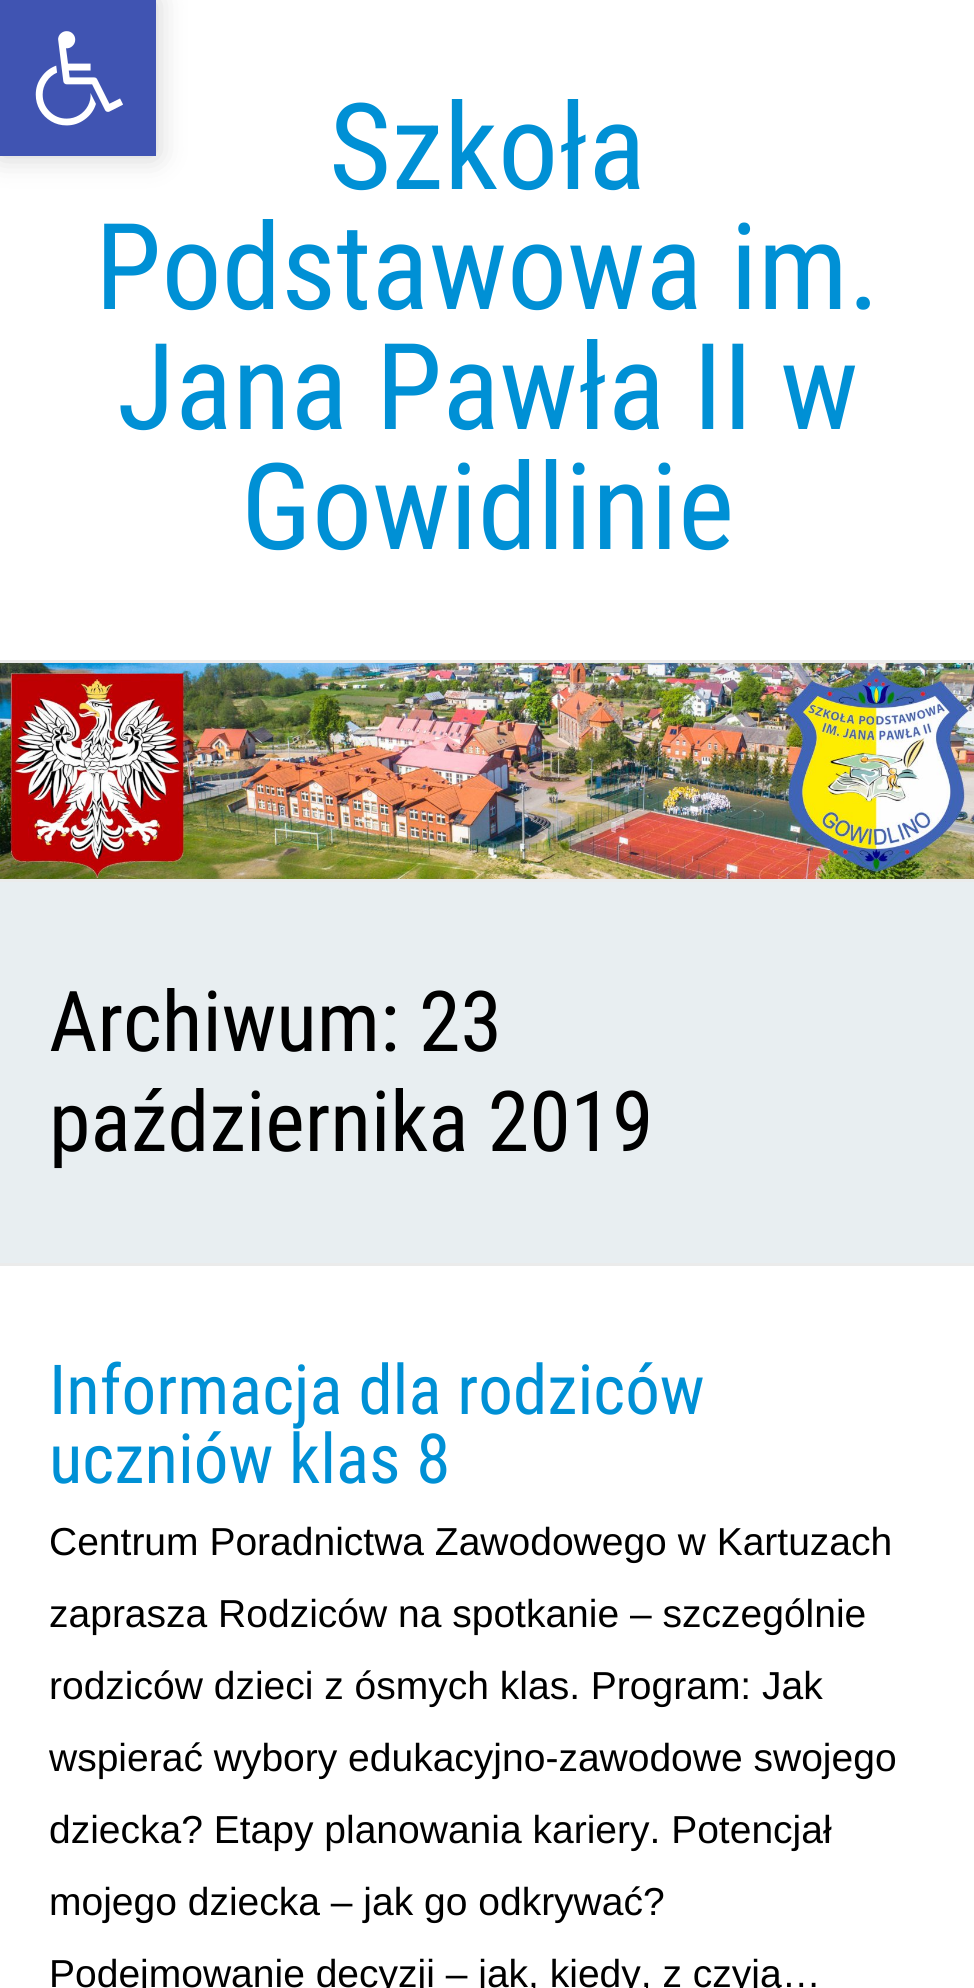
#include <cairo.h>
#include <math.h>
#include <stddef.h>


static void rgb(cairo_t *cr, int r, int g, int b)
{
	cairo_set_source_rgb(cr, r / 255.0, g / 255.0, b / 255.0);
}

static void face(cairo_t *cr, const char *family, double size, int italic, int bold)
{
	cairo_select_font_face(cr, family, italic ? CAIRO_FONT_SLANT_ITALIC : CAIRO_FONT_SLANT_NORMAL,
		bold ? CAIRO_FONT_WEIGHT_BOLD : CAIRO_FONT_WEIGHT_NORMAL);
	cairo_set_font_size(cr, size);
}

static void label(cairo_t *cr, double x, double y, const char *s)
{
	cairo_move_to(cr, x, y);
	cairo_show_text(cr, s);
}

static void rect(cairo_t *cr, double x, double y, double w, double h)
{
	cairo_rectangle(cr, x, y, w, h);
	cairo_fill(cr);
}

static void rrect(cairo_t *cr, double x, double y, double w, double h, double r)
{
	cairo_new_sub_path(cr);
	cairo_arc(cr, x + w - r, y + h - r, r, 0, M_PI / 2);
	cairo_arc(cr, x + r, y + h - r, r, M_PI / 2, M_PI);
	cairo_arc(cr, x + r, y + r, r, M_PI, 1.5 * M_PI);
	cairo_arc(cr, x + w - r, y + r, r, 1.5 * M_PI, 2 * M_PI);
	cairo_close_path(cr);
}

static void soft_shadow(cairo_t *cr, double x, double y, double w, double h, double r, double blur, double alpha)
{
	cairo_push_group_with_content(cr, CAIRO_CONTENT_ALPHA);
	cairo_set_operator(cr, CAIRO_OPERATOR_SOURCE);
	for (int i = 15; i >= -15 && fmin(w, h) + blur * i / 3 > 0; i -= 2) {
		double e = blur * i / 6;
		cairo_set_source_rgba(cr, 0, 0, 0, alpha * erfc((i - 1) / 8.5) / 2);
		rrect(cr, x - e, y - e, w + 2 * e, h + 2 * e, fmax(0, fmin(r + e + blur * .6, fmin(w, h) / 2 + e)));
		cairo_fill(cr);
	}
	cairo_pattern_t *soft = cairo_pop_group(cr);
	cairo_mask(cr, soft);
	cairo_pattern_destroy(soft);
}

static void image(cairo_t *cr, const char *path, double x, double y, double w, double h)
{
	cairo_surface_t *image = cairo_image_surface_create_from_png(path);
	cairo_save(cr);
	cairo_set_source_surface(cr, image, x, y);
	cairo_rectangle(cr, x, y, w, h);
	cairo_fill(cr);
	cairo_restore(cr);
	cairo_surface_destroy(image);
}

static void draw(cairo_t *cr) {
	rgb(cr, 255, 255, 255);
	cairo_paint(cr);
	rgb(cr, 0, 0, 0);
	soft_shadow(cr, 0, 0, 156, 156, 0, 15, 0.2);
	rgb(cr, 64, 84, 178);
	rect(cr, 0, 0, 156, 156);
	image(cr, "image0.png", 35, 31, 88, 95);
	rgb(cr, 235, 235, 235);
	rect(cr, 0, 660, 974, 3);
	face(cr, "Roboto Condensed", 120, 0, 0);
	rgb(cr, 0, 144, 213);
	label(cr, 329, 189, "Szkoła");
	label(cr, 95, 309, "Podstawowa im.");
	label(cr, 117, 429, "Jana Pawła II w");
	label(cr, 241, 549, "Gowidlinie");
	rgb(cr, 235, 235, 235);
	rect(cr, 0, 879, 974, 3);
	image(cr, "image1.png", 0, 663, 974, 216);
	rgb(cr, 232, 238, 241);
	rect(cr, 0, 882, 974, 381);
	rgb(cr, 235, 235, 235);
	rect(cr, 0, 1263, 974, 3);
	face(cr, "Roboto Condensed", 84, 0, 0);
	rgb(cr, 0, 0, 0);
	label(cr, 49, 1051, "Archiwum: 23");
	label(cr, 49, 1151, "października 2019");
	face(cr, "Roboto Condensed", 69, 0, 0);
	rgb(cr, 0, 144, 213);
	label(cr, 49, 1414, "Informacja dla rodziców");
	label(cr, 49, 1483, "uczniów klas 8");
	face(cr, "Liberation Sans", 39, 0, 0);
	rgb(cr, 0, 0, 0);
	label(cr, 49, 1555, "Centrum Poradnictwa Zawodowego w Kartuzach");
	label(cr, 49, 1627, "zaprasza Rodziców na spotkanie – szczególnie");
	label(cr, 49, 1699, "rodziców dzieci z ósmych klas. Program: Jak");
	label(cr, 49, 1771, "wspierać wybory edukacyjno-zawodowe swojego");
	label(cr, 49, 1843, "dziecka? Etapy planowania kariery. Potencjał");
	label(cr, 49, 1915, "mojego dziecka – jak go odkrywać?");
	label(cr, 49, 1987, "Podejmowanie decyzji – jak, kiedy, z czyją…");
}

int main(void) {
	cairo_surface_t *surface = cairo_image_surface_create(CAIRO_FORMAT_RGB24, 974, 1988);
	cairo_t *cr = cairo_create(surface);
	cairo_font_options_t *options = cairo_font_options_create();
	cairo_font_options_set_hint_metrics(options, CAIRO_HINT_METRICS_OFF);
	cairo_font_options_set_hint_style(options, CAIRO_HINT_STYLE_NONE);
	cairo_set_font_options(cr, options);
	cairo_set_miter_limit(cr, 4);
	draw(cr);
	cairo_surface_write_to_png(surface, "render.png");
	cairo_font_options_destroy(options);
	cairo_destroy(cr);
	cairo_surface_destroy(surface);
	return 0;
}
